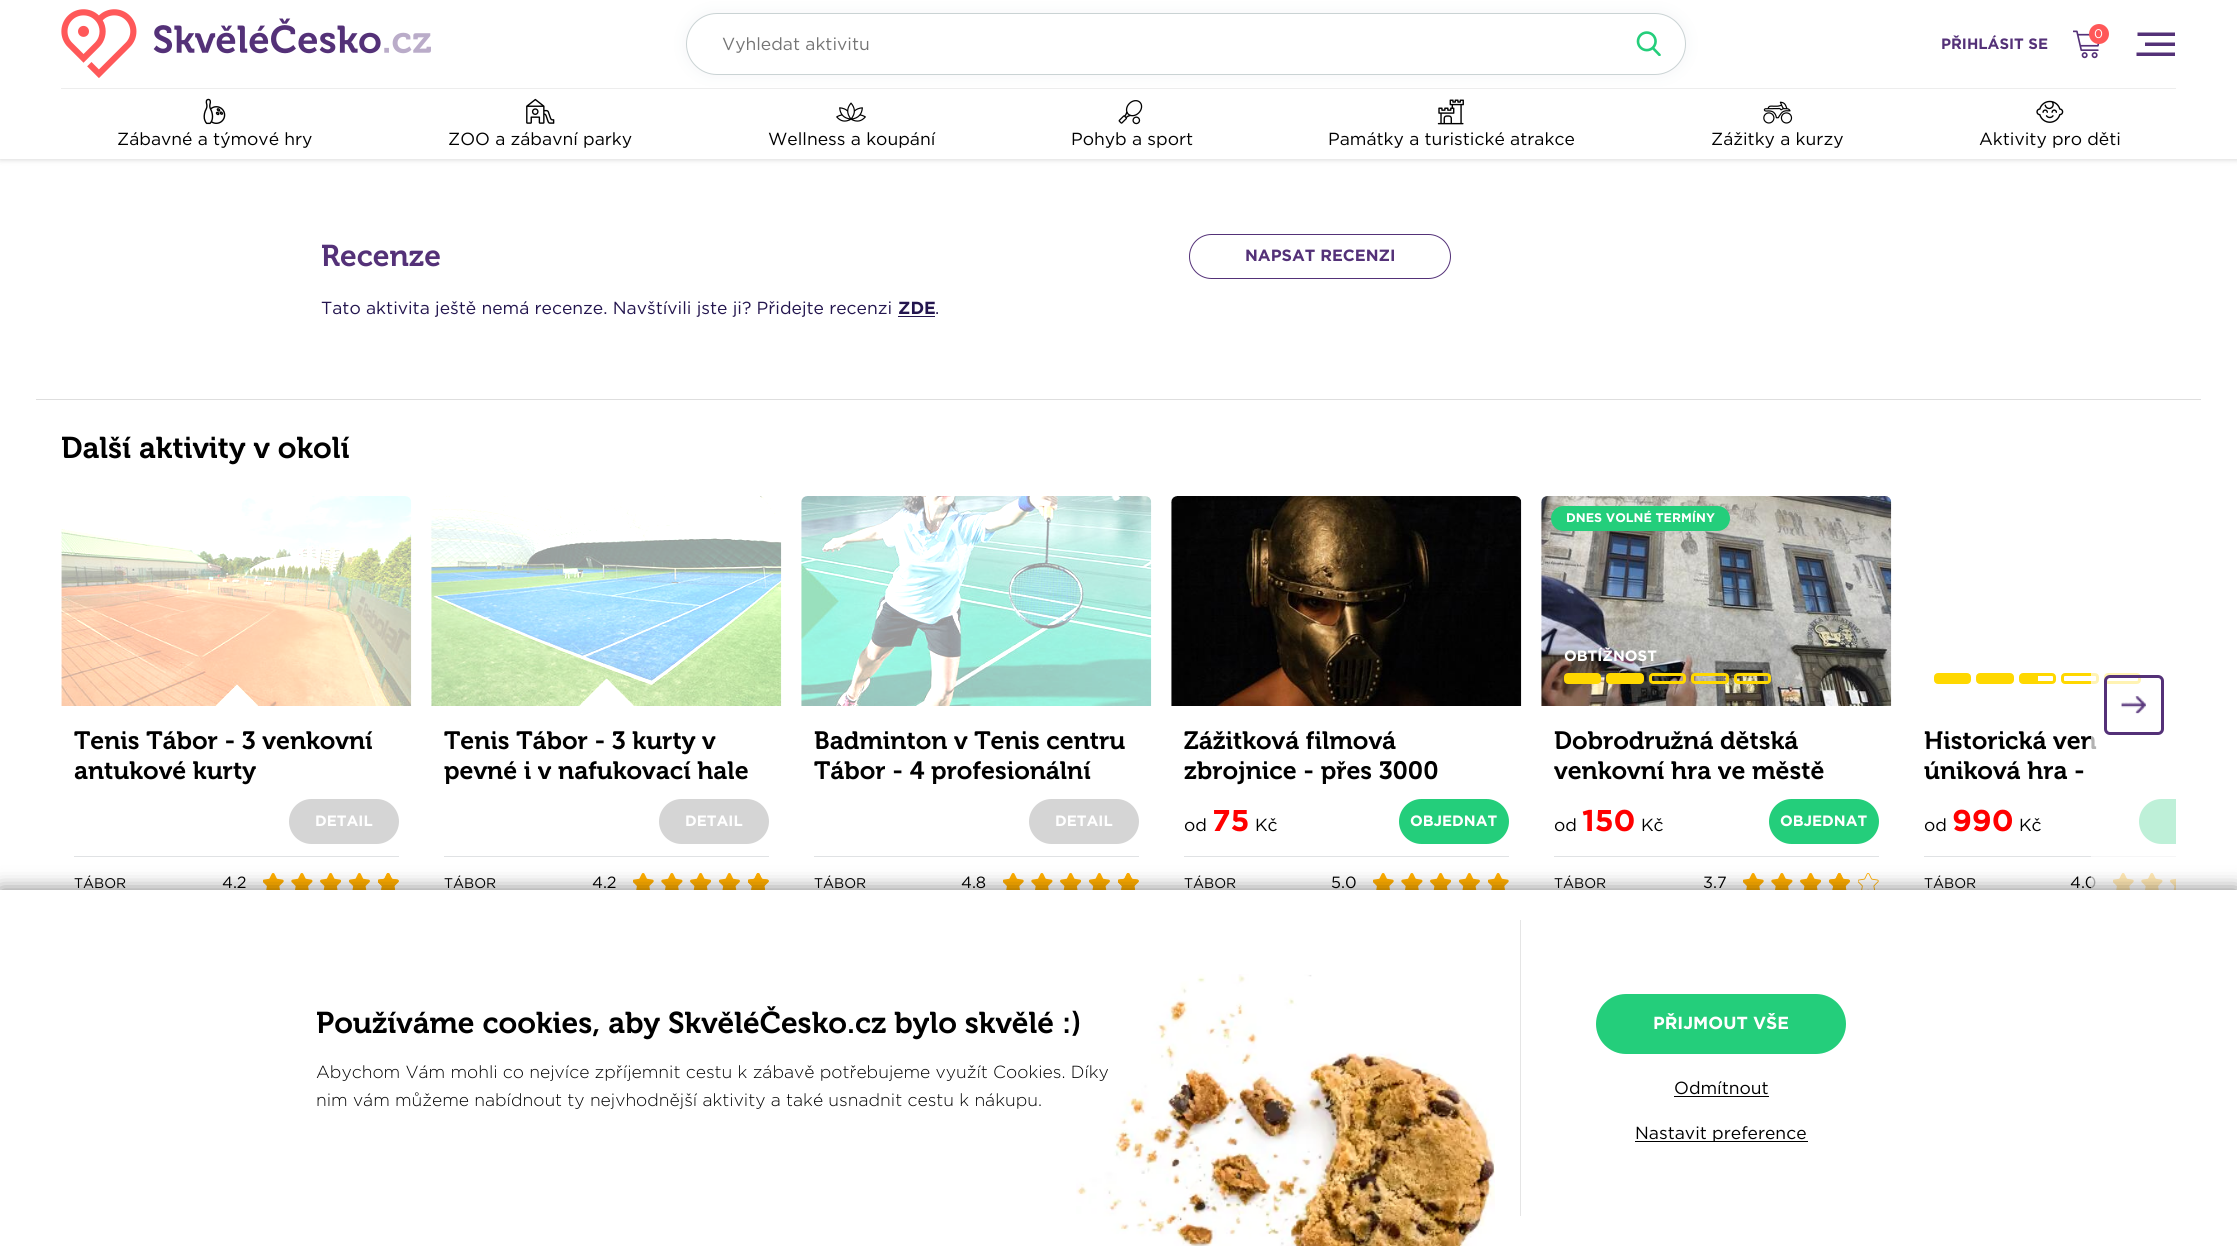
#include <cairo.h>
#include <math.h>
#include <stddef.h>


static void rgb(cairo_t *cr, int r, int g, int b)
{
	cairo_set_source_rgb(cr, r / 255.0, g / 255.0, b / 255.0);
}

static void face(cairo_t *cr, const char *family, double size, int italic, int bold)
{
	cairo_select_font_face(cr, family, italic ? CAIRO_FONT_SLANT_ITALIC : CAIRO_FONT_SLANT_NORMAL,
		bold ? CAIRO_FONT_WEIGHT_BOLD : CAIRO_FONT_WEIGHT_NORMAL);
	cairo_set_font_size(cr, size);
}

static void label(cairo_t *cr, double x, double y, const char *s)
{
	cairo_move_to(cr, x, y);
	cairo_show_text(cr, s);
}

static void rect(cairo_t *cr, double x, double y, double w, double h)
{
	cairo_rectangle(cr, x, y, w, h);
	cairo_fill(cr);
}

static void rrect(cairo_t *cr, double x, double y, double w, double h, double r)
{
	cairo_new_sub_path(cr);
	cairo_arc(cr, x + w - r, y + h - r, r, 0, M_PI / 2);
	cairo_arc(cr, x + r, y + h - r, r, M_PI / 2, M_PI);
	cairo_arc(cr, x + r, y + r, r, M_PI, 1.5 * M_PI);
	cairo_arc(cr, x + w - r, y + r, r, 1.5 * M_PI, 2 * M_PI);
	cairo_close_path(cr);
}

static void soft_shadow(cairo_t *cr, double x, double y, double w, double h, double r, double blur, double alpha)
{
	cairo_push_group_with_content(cr, CAIRO_CONTENT_ALPHA);
	cairo_set_operator(cr, CAIRO_OPERATOR_SOURCE);
	for (int i = 15; i >= -15 && fmin(w, h) + blur * i / 3 > 0; i -= 2) {
		double e = blur * i / 6;
		cairo_set_source_rgba(cr, 0, 0, 0, alpha * erfc((i - 1) / 8.5) / 2);
		rrect(cr, x - e, y - e, w + 2 * e, h + 2 * e, fmax(0, fmin(r + e + blur * .6, fmin(w, h) / 2 + e)));
		cairo_fill(cr);
	}
	cairo_pattern_t *soft = cairo_pop_group(cr);
	cairo_mask(cr, soft);
	cairo_pattern_destroy(soft);
}

static void image(cairo_t *cr, const char *path, double x, double y, double w, double h)
{
	cairo_surface_t *image = cairo_image_surface_create_from_png(path);
	cairo_save(cr);
	cairo_set_source_surface(cr, image, x, y);
	cairo_rectangle(cr, x, y, w, h);
	cairo_fill(cr);
	cairo_restore(cr);
	cairo_surface_destroy(image);
}

static void draw(cairo_t *cr) {
	rgb(cr, 255, 255, 255);
	cairo_paint(cr);
	rgb(cr, 0, 0, 0);
	soft_shadow(cr, 0, 0, 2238, 159, 0, 3, 0.2);
	rgb(cr, 255, 255, 255);
	rect(cr, 0, 0, 2237, 159);
	rgb(cr, 237, 237, 237);
	rect(cr, 61, 88, 2115, 1);
	image(cr, "image0.png", 61, 9, 370, 69);
	rgb(cr, 171, 179, 187);
	soft_shadow(cr, 686, 13, 1000, 62, 31, 8, 0.13);
	rgb(cr, 255, 255, 255);
	rrect(cr, 686.5, 13.5, 999, 61, 30.5);
	cairo_fill_preserve(cr);
	rgb(cr, 202, 211, 212);
	cairo_set_line_width(cr, 1);
	cairo_stroke(cr);
	face(cr, "Gotham", 17.5, 0, 0);
	rgb(cr, 117, 117, 117);
	label(cr, 722, 50, "Vyhledat aktivitu");
	image(cr, "image1.png", 1636, 31, 25, 25);
	face(cr, "Gotham", 15, 0, 1);
	rgb(cr, 84, 49, 120);
	label(cr, 1941, 49, "PŘIHLÁSIT SE");
	image(cr, "image2.png", 2073, 30, 27, 29);
	rgb(cr, 255, 88, 89);
	cairo_arc(cr, 2099, 34, 10, 0, 2 * M_PI);
	cairo_fill(cr);
	face(cr, "Gotham", 12.5, 0, 0);
	rgb(cr, 255, 255, 255);
	label(cr, 2094, 38, "0");
	rgb(cr, 84, 49, 120);
	cairo_new_path(cr);
	cairo_move_to(cr, 2137.5, 32.5);
	cairo_line_to(cr, 2175, 32.5);
	cairo_line_to(cr, 2175, 36);
	cairo_line_to(cr, 2137.5, 36);
	cairo_close_path(cr);
	cairo_move_to(cr, 2145, 42.5);
	cairo_line_to(cr, 2175, 42.5);
	cairo_line_to(cr, 2175, 46);
	cairo_line_to(cr, 2145, 46);
	cairo_close_path(cr);
	cairo_move_to(cr, 2136.5, 52.5);
	cairo_line_to(cr, 2175, 52.5);
	cairo_line_to(cr, 2175, 56);
	cairo_line_to(cr, 2136.5, 56);
	cairo_close_path(cr);
	cairo_fill(cr);
	image(cr, "image3.png", 203, 98, 23, 27);
	face(cr, "Gotham", 17.5, 0, 0);
	rgb(cr, 0, 0, 0);
	label(cr, 117, 145, "Zábavné a týmové hry");
	image(cr, "image4.png", 526, 98, 29, 26);
	label(cr, 448, 145, "ZOO a zábavní parky");
	image(cr, "image5.png", 836, 102, 30, 20);
	label(cr, 768, 145, "Wellness a koupání");
	image(cr, "image6.png", 1118, 100, 25, 25);
	label(cr, 1071, 145, "Pohyb a sport");
	image(cr, "image7.png", 1437, 99, 27, 26);
	label(cr, 1328, 145, "Památky a turistické atrakce");
	image(cr, "image8.png", 1763, 101, 30, 23);
	label(cr, 1711, 145, "Zážitky a kurzy");
	image(cr, "image9.png", 2036, 100, 28, 23);
	label(cr, 1979, 145, "Aktivity pro děti");
	face(cr, "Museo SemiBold", 30, 0, 0);
	rgb(cr, 84, 49, 120);
	label(cr, 321, 266, "Recenze");
	rrect(cr, 1189.5, 234.5, 261, 44, 22);
	cairo_stroke(cr);
	face(cr, "Gotham", 16.25, 0, 1);
	label(cr, 1245, 261, "NAPSAT RECENZI");
	face(cr, "Gotham", 17.5, 0, 0);
	rgb(cr, 35, 21, 78);
	label(cr, 321, 314, "Tato aktivita ještě nemá recenze. Navštívili jste ji? Přidejte recenzi");
	face(cr, "Gotham", 17.5, 0, 1);
	label(cr, 898, 314, "ZDE");
	rect(cr, 898, 316, 37, 1);
	face(cr, "Gotham", 17.5, 0, 0);
	label(cr, 935, 314, ".");
	rgb(cr, 222, 222, 222);
	rect(cr, 36, 399, 2165, 1);
	face(cr, "Museo SemiBold", 30, 0, 0);
	rgb(cr, 0, 0, 0);
	label(cr, 61, 458, "Další aktivity v okolí");
	image(cr, "image10.png", 61, 496, 351, 210);
	face(cr, "Museo SemiBold", 25, 0, 0);
	label(cr, 74, 749, "Tenis Tábor - 3 venkovní");
	label(cr, 74, 779, "antukové kurty");
	rgb(cr, 213, 213, 213);
	rrect(cr, 289, 799, 110, 45, 22.5);
	cairo_fill(cr);
	face(cr, "Gotham", 15, 0, 1);
	rgb(cr, 255, 255, 255);
	label(cr, 315, 826, "DETAIL");
	rgb(cr, 224, 226, 228);
	rect(cr, 74, 856, 325, 1);
	face(cr, "Gotham", 14, 0, 0);
	rgb(cr, 0, 0, 0);
	label(cr, 74, 888, "TÁBOR");
	face(cr, "Gotham", 16.25, 0, 0);
	label(cr, 222, 888, "4.2");
	image(cr, "image11.png", 263, 873, 21, 17);
	image(cr, "image12.png", 291, 873, 22, 17);
	image(cr, "image13.png", 320, 873, 21, 17);
	image(cr, "image14.png", 349, 873, 21, 17);
	image(cr, "image15.png", 378, 873, 21, 17);
	image(cr, "image16.png", 378, 873, 21, 17);
	image(cr, "image17.png", 431, 496, 351, 210);
	face(cr, "Museo SemiBold", 25, 0, 0);
	label(cr, 444, 749, "Tenis Tábor - 3 kurty v");
	label(cr, 444, 779, "pevné i v nafukovací hale");
	rgb(cr, 213, 213, 213);
	rrect(cr, 659, 799, 110, 45, 22.5);
	cairo_fill(cr);
	face(cr, "Gotham", 15, 0, 1);
	rgb(cr, 255, 255, 255);
	label(cr, 685, 826, "DETAIL");
	rgb(cr, 224, 226, 228);
	rect(cr, 444, 856, 325, 1);
	face(cr, "Gotham", 14, 0, 0);
	rgb(cr, 0, 0, 0);
	label(cr, 444, 888, "TÁBOR");
	face(cr, "Gotham", 16.25, 0, 0);
	label(cr, 592, 888, "4.2");
	image(cr, "image11.png", 633, 873, 21, 17);
	image(cr, "image12.png", 661, 873, 22, 17);
	image(cr, "image13.png", 690, 873, 21, 17);
	image(cr, "image14.png", 719, 873, 21, 17);
	image(cr, "image15.png", 748, 873, 21, 17);
	image(cr, "image16.png", 748, 873, 21, 17);
	image(cr, "image18.png", 801, 496, 351, 210);
	face(cr, "Museo SemiBold", 25, 0, 0);
	label(cr, 814, 749, "Badminton v Tenis centru");
	label(cr, 814, 779, "Tábor - 4 profesionální");
	rgb(cr, 213, 213, 213);
	rrect(cr, 1029, 799, 110, 45, 22.5);
	cairo_fill(cr);
	face(cr, "Gotham", 15, 0, 1);
	rgb(cr, 255, 255, 255);
	label(cr, 1055, 826, "DETAIL");
	rgb(cr, 224, 226, 228);
	rect(cr, 814, 856, 325, 1);
	face(cr, "Gotham", 14, 0, 0);
	rgb(cr, 0, 0, 0);
	label(cr, 814, 888, "TÁBOR");
	face(cr, "Gotham", 16.25, 0, 0);
	label(cr, 961, 888, "4.8");
	image(cr, "image11.png", 1003, 873, 21, 17);
	image(cr, "image12.png", 1031, 873, 22, 17);
	image(cr, "image13.png", 1060, 873, 21, 17);
	image(cr, "image14.png", 1089, 873, 21, 17);
	image(cr, "image15.png", 1118, 873, 21, 17);
	image(cr, "image16.png", 1118, 873, 21, 17);
	image(cr, "image19.png", 1171, 496, 351, 210);
	face(cr, "Museo SemiBold", 25, 0, 0);
	label(cr, 1184, 749, "Zážitková filmová");
	label(cr, 1184, 779, "zbrojnice - přes 3000");
	face(cr, "Gotham", 17.5, 0, 0);
	label(cr, 1184, 831, "od");
	face(cr, "Gotham", 30, 0, 1);
	rgb(cr, 255, 0, 0);
	label(cr, 1212, 831, "75");
	face(cr, "Gotham", 17.5, 0, 0);
	rgb(cr, 0, 0, 0);
	label(cr, 1255, 831, "Kč");
	rgb(cr, 36, 206, 123);
	rrect(cr, 1399, 799, 110, 45, 22.5);
	cairo_fill(cr);
	face(cr, "Gotham", 15, 0, 1);
	rgb(cr, 255, 255, 255);
	label(cr, 1410, 826, "OBJEDNAT");
	rgb(cr, 224, 226, 228);
	rect(cr, 1184, 856, 325, 1);
	face(cr, "Gotham", 14, 0, 0);
	rgb(cr, 0, 0, 0);
	label(cr, 1184, 888, "TÁBOR");
	face(cr, "Gotham", 16.25, 0, 0);
	label(cr, 1331, 888, "5.0");
	image(cr, "image11.png", 1373, 873, 21, 17);
	image(cr, "image12.png", 1401, 873, 22, 17);
	image(cr, "image13.png", 1430, 873, 21, 17);
	image(cr, "image14.png", 1459, 873, 21, 17);
	image(cr, "image11.png", 1488, 873, 21, 17);
	image(cr, "image20.png", 1541, 496, 351, 210);
	rgb(cr, 36, 206, 123);
	rrect(cr, 1551, 506, 179, 25, 12.5);
	cairo_fill(cr);
	face(cr, "Gotham", 12.5, 0, 1);
	rgb(cr, 255, 255, 255);
	label(cr, 1566, 522, "DNES VOLNÉ TERMÍNY");
	face(cr, "Gotham", 15, 0, 1);
	label(cr, 1564, 661, "OBTÍŽNOST");
	rrect(cr, 1565.5, 674.5, 34, 8, 2.5);
	rgb(cr, 255, 216, 0);
	cairo_set_line_width(cr, 3);
	cairo_stroke(cr);
	rect(cr, 1566, 676, 33, 5);
	rrect(cr, 1607.5, 674.5, 35, 8, 2.5);
	cairo_stroke(cr);
	rect(cr, 1609, 676, 32, 5);
	rrect(cr, 1650.5, 674.5, 34, 8, 2.5);
	cairo_stroke(cr);
	rrect(cr, 1692.5, 674.5, 35, 8, 2.5);
	cairo_stroke(cr);
	rrect(cr, 1735.5, 674.5, 34, 8, 2.5);
	cairo_stroke(cr);
	face(cr, "Museo SemiBold", 25, 0, 0);
	rgb(cr, 0, 0, 0);
	label(cr, 1554, 749, "Dobrodružná dětská");
	label(cr, 1554, 779, "venkovní hra ve městě");
	face(cr, "Gotham", 17.5, 0, 0);
	label(cr, 1554, 831, "od");
	face(cr, "Gotham", 30, 0, 1);
	rgb(cr, 255, 0, 0);
	label(cr, 1582, 831, "150");
	face(cr, "Gotham", 17.5, 0, 0);
	rgb(cr, 0, 0, 0);
	label(cr, 1641, 831, "Kč");
	rgb(cr, 36, 206, 123);
	rrect(cr, 1769, 799, 110, 45, 22.5);
	cairo_fill(cr);
	face(cr, "Gotham", 15, 0, 1);
	rgb(cr, 255, 255, 255);
	label(cr, 1780, 826, "OBJEDNAT");
	rgb(cr, 224, 226, 228);
	rect(cr, 1554, 856, 325, 1);
	face(cr, "Gotham", 14, 0, 0);
	rgb(cr, 0, 0, 0);
	label(cr, 1554, 888, "TÁBOR");
	face(cr, "Gotham", 16.25, 0, 0);
	label(cr, 1703, 888, "3.7");
	image(cr, "image11.png", 1743, 873, 21, 17);
	image(cr, "image12.png", 1771, 873, 22, 17);
	image(cr, "image13.png", 1800, 873, 21, 17);
	image(cr, "image21.png", 1829, 873, 21, 17);
	image(cr, "image22.png", 1829, 873, 21, 17);
	image(cr, "image15.png", 1858, 873, 21, 17);
	rrect(cr, 1935.5, 674.5, 34, 8, 2.5);
	rgb(cr, 255, 216, 0);
	cairo_stroke(cr);
	rect(cr, 1936, 676, 33, 5);
	rrect(cr, 1977.5, 674.5, 35, 8, 2.5);
	cairo_stroke(cr);
	rect(cr, 1979, 676, 32, 5);
	rrect(cr, 2020.5, 674.5, 34, 8, 2.5);
	cairo_stroke(cr);
	rect(cr, 2021, 676, 17, 5);
	rrect(cr, 2062.5, 674.5, 35, 8, 2.5);
	cairo_stroke(cr);
	rrect(cr, 2105.5, 674.5, 34, 8, 2.5);
	cairo_stroke(cr);
	face(cr, "Museo SemiBold", 25, 0, 0);
	rgb(cr, 0, 0, 0);
	label(cr, 1924, 749, "Historická ven");
	label(cr, 1924, 779, "úniková hra -");
	face(cr, "Gotham", 17.5, 0, 0);
	label(cr, 1924, 831, "od");
	face(cr, "Gotham", 30, 0, 1);
	rgb(cr, 255, 0, 0);
	label(cr, 1952, 831, "990");
	face(cr, "Gotham", 17.5, 0, 0);
	rgb(cr, 0, 0, 0);
	label(cr, 2019, 831, "Kč");
	rgb(cr, 36, 206, 123);
	cairo_new_path(cr);
	cairo_move_to(cr, 2161.5, 799);
	cairo_line_to(cr, 2176, 799);
	cairo_line_to(cr, 2176, 844);
	cairo_line_to(cr, 2161.5, 844);
	cairo_curve_to(cr, 2149, 844, 2139, 834, 2139, 821.5);
	cairo_curve_to(cr, 2139, 809, 2149, 799, 2161.5, 799);
	cairo_close_path(cr);
	cairo_fill(cr);
	rgb(cr, 224, 226, 228);
	rect(cr, 1924, 856, 252, 1);
	face(cr, "Gotham", 14, 0, 0);
	rgb(cr, 0, 0, 0);
	label(cr, 1924, 888, "TÁBOR");
	face(cr, "Gotham", 16.25, 0, 0);
	label(cr, 2070, 888, "4.0");
	image(cr, "image11.png", 2113, 873, 21, 17);
	image(cr, "image12.png", 2141, 873, 22, 17);
	image(cr, "image23.png", 2170, 878, 6, 12);
	cairo_set_source_rgba(cr, 1, 1, 1, 0.7);
	rect(cr, 2091, 673, 85, 217);
	rrect(cr, 2105.5, 676.5, 57, 57, 4.5);
	rgb(cr, 84, 49, 120);
	cairo_stroke(cr);
	image(cr, "image24.png", 2121, 696, 25, 18);
	rgb(cr, 0, 0, 0);
	soft_shadow(cr, 0, 890, 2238, 356, 0, 10, 0.5);
	rgb(cr, 255, 255, 255);
	rect(cr, 0, 890, 2237, 356);
	image(cr, "image25.png", 1076, 974, 419, 272);
	face(cr, "Museo SemiBold", 30, 0, 0);
	rgb(cr, 0, 0, 0);
	label(cr, 316, 1033, "Používáme cookies, aby SkvěléČesko.cz bylo skvělé :)");
	face(cr, "Gotham Light", 17.5, 0, 0);
	label(cr, 316, 1078, "Abychom Vám mohli co nejvíce zpříjemnit cestu k zábavě potřebujeme využít Cookies. Díky");
	label(cr, 316, 1106, "nim vám můžeme nabídnout ty nejvhodnější aktivity a také usnadnit cestu k nákupu.");
	rgb(cr, 229, 229, 229);
	rect(cr, 1520, 920, 1, 296);
	rgb(cr, 36, 206, 123);
	rrect(cr, 1596, 994, 250, 60, 30);
	cairo_fill(cr);
	face(cr, "Gotham", 17.5, 0, 1);
	rgb(cr, 255, 255, 255);
	label(cr, 1653, 1029, "PŘIJMOUT VŠE");
	face(cr, "Gotham", 17.5, 0, 0);
	rgb(cr, 0, 0, 0);
	label(cr, 1674, 1094, "Odmítnout");
	rect(cr, 1674, 1096, 95, 1);
	rect(cr, 1635, 1141, 173, 1);
	label(cr, 1635, 1139, "Nastavit preference");
}

int main(void) {
	cairo_surface_t *surface = cairo_image_surface_create(CAIRO_FORMAT_RGB24, 2237, 1246);
	cairo_t *cr = cairo_create(surface);
	cairo_font_options_t *options = cairo_font_options_create();
	cairo_font_options_set_hint_metrics(options, CAIRO_HINT_METRICS_OFF);
	cairo_font_options_set_hint_style(options, CAIRO_HINT_STYLE_NONE);
	cairo_set_font_options(cr, options);
	cairo_set_miter_limit(cr, 4);
	draw(cr);
	cairo_surface_write_to_png(surface, "render.png");
	cairo_font_options_destroy(options);
	cairo_destroy(cr);
	cairo_surface_destroy(surface);
	return 0;
}
